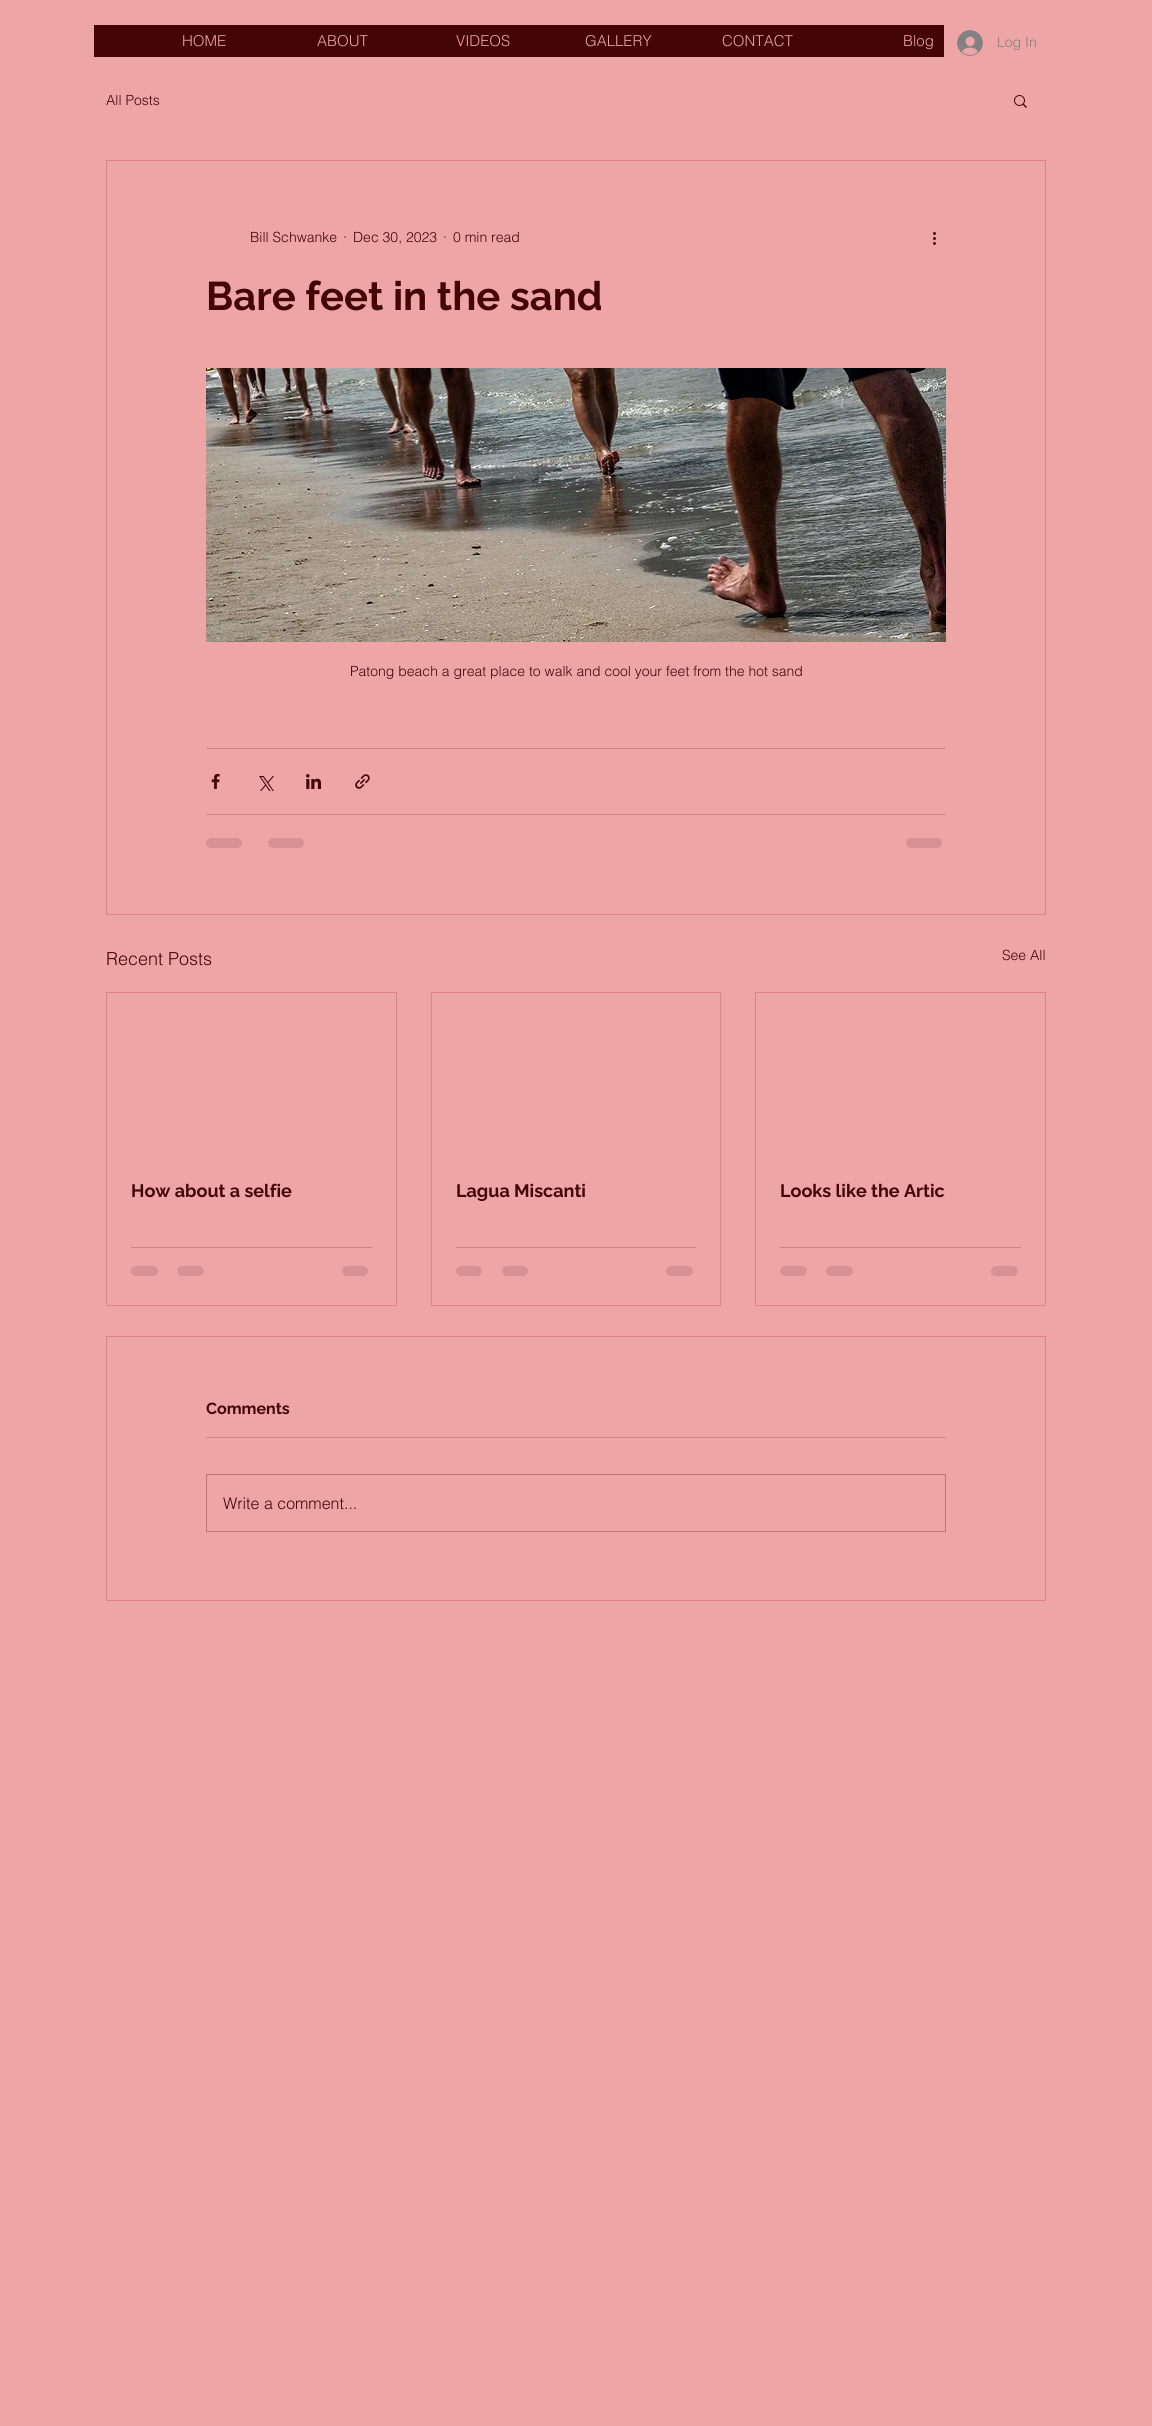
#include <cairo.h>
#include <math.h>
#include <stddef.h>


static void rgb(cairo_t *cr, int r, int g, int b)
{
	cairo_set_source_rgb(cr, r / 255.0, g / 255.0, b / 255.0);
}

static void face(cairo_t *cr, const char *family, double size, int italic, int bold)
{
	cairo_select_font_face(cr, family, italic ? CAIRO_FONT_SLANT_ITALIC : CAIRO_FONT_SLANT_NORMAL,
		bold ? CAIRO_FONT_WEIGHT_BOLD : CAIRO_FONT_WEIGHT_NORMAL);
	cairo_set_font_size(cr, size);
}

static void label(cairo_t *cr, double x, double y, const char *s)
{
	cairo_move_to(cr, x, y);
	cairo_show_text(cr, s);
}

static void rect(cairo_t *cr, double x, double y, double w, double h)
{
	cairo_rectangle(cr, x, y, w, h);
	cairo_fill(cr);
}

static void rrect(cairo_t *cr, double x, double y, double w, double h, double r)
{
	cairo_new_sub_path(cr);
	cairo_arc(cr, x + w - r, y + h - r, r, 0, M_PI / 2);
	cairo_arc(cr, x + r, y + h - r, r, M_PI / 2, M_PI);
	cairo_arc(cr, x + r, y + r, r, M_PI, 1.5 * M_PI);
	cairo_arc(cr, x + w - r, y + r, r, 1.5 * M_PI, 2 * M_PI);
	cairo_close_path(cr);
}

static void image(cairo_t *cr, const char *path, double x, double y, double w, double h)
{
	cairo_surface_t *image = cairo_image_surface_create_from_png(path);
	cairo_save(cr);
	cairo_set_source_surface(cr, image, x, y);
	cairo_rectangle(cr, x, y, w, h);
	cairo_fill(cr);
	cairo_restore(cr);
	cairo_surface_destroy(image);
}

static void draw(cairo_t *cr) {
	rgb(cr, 237, 165, 166);
	cairo_paint(cr);
	rgb(cr, 68, 5, 6);
	rect(cr, 94, 25, 850, 32);
	face(cr, "helvetica Light", 15, 0, 0);
	rgb(cr, 237, 165, 166);
	label(cr, 182, 46, "HOME");
	label(cr, 317, 46, "ABOUT");
	label(cr, 456, 46, "VIDEOS");
	label(cr, 585, 46, "GALLERY");
	label(cr, 722, 46, "CONTACT");
	label(cr, 903, 46, "Blog");
	image(cr, "image0.png", 957, 30, 26, 26);
	face(cr, "helvetica Light", 14, 0, 0);
	rgb(cr, 130, 130, 130);
	label(cr, 997, 47, "Log In");
	rgb(cr, 68, 5, 6);
	label(cr, 106, 105, "All Posts");
	image(cr, "image1.png", 1014, 95, 13, 13);
	cairo_rectangle(cr, 106.5, 160.5, 939, 754);
	rgb(cr, 225, 131, 132);
	cairo_set_line_width(cr, 1);
	cairo_stroke(cr);
	rgb(cr, 68, 5, 6);
	label(cr, 250, 242, "Bill Schwanke");
	label(cr, 343, 242, "·");
	label(cr, 353, 242, "Dec 30, 2023");
	label(cr, 443, 242, "·");
	label(cr, 453, 242, "0 min read");
	image(cr, "image2.png", 933, 232, 3, 13);
	face(cr, "Raleway", 40, 0, 1);
	label(cr, 206, 310, "Bare feet in the sand");
	image(cr, "image3.png", 206, 368, 740, 274);
	face(cr, "helvetica Light", 14, 0, 0);
	label(cr, 350, 676, "Patong beach a great place to walk and cool your feet from the hot sand");
	rgb(cr, 203, 133, 134);
	rect(cr, 206, 748, 740, 1);
	image(cr, "image4.png", 211, 774, 9, 15);
	image(cr, "image5.png", 259, 776, 15, 15);
	image(cr, "image6.png", 306, 774, 15, 15);
	image(cr, "image7.png", 355, 774, 15, 15);
	rect(cr, 206, 814, 740, 1);
	rgb(cr, 217, 146, 147);
	rrect(cr, 206, 838, 36, 10, 5);
	cairo_fill(cr);
	rrect(cr, 268, 838, 36, 10, 5);
	cairo_fill(cr);
	rrect(cr, 906, 838, 36, 10, 5);
	cairo_fill(cr);
	face(cr, "helvetica Light", 18, 0, 0);
	rgb(cr, 68, 5, 6);
	label(cr, 106, 965, "Recent Posts");
	face(cr, "helvetica Light", 14, 0, 0);
	label(cr, 1002, 960, "See All");
	cairo_rectangle(cr, 106.5, 992.5, 290, 313);
	rgb(cr, 225, 131, 132);
	cairo_stroke(cr);
	face(cr, "Raleway", 18, 0, 1);
	rgb(cr, 68, 5, 6);
	label(cr, 131, 1197, "How about a selfie");
	rgb(cr, 203, 133, 134);
	rect(cr, 131, 1247, 241, 1);
	rgb(cr, 217, 146, 147);
	rrect(cr, 131, 1266, 27, 10, 5);
	cairo_fill(cr);
	rrect(cr, 177, 1266, 27, 10, 5);
	cairo_fill(cr);
	rrect(cr, 342, 1266, 26, 10, 5);
	cairo_fill(cr);
	cairo_rectangle(cr, 431.5, 992.5, 289, 313);
	rgb(cr, 225, 131, 132);
	cairo_stroke(cr);
	rgb(cr, 68, 5, 6);
	label(cr, 456, 1197, "Lagua Miscanti");
	rgb(cr, 203, 133, 134);
	rect(cr, 456, 1247, 240, 1);
	rgb(cr, 217, 146, 147);
	rrect(cr, 456, 1266, 26, 10, 5);
	cairo_fill(cr);
	rrect(cr, 502, 1266, 26, 10, 5);
	cairo_fill(cr);
	rrect(cr, 666, 1266, 27, 10, 5);
	cairo_fill(cr);
	cairo_rectangle(cr, 755.5, 992.5, 290, 313);
	rgb(cr, 225, 131, 132);
	cairo_stroke(cr);
	rgb(cr, 68, 5, 6);
	label(cr, 780, 1197, "Looks like the Artic");
	rgb(cr, 203, 133, 134);
	rect(cr, 780, 1247, 241, 1);
	rgb(cr, 217, 146, 147);
	rrect(cr, 780, 1266, 27, 10, 5);
	cairo_fill(cr);
	rrect(cr, 826, 1266, 27, 10, 5);
	cairo_fill(cr);
	rrect(cr, 991, 1266, 27, 10, 5);
	cairo_fill(cr);
	cairo_rectangle(cr, 106.5, 1336.5, 939, 264);
	rgb(cr, 225, 131, 132);
	cairo_stroke(cr);
	face(cr, "Raleway", 16, 0, 1);
	rgb(cr, 68, 5, 6);
	label(cr, 206, 1414, "Comments");
	rgb(cr, 203, 133, 134);
	rect(cr, 206, 1437, 740, 1);
	cairo_rectangle(cr, 206.5, 1474.5, 739, 57);
	rgb(cr, 186, 117, 118);
	cairo_stroke(cr);
	face(cr, "helvetica Light", 16, 0, 0);
	rgb(cr, 68, 5, 6);
	label(cr, 223, 1509, "Write a comment...");
}

int main(void) {
	cairo_surface_t *surface = cairo_image_surface_create(CAIRO_FORMAT_RGB24, 1152, 2426);
	cairo_t *cr = cairo_create(surface);
	cairo_font_options_t *options = cairo_font_options_create();
	cairo_font_options_set_hint_metrics(options, CAIRO_HINT_METRICS_OFF);
	cairo_font_options_set_hint_style(options, CAIRO_HINT_STYLE_NONE);
	cairo_set_font_options(cr, options);
	cairo_set_miter_limit(cr, 4);
	draw(cr);
	cairo_surface_write_to_png(surface, "render.png");
	cairo_font_options_destroy(options);
	cairo_destroy(cr);
	cairo_surface_destroy(surface);
	return 0;
}
